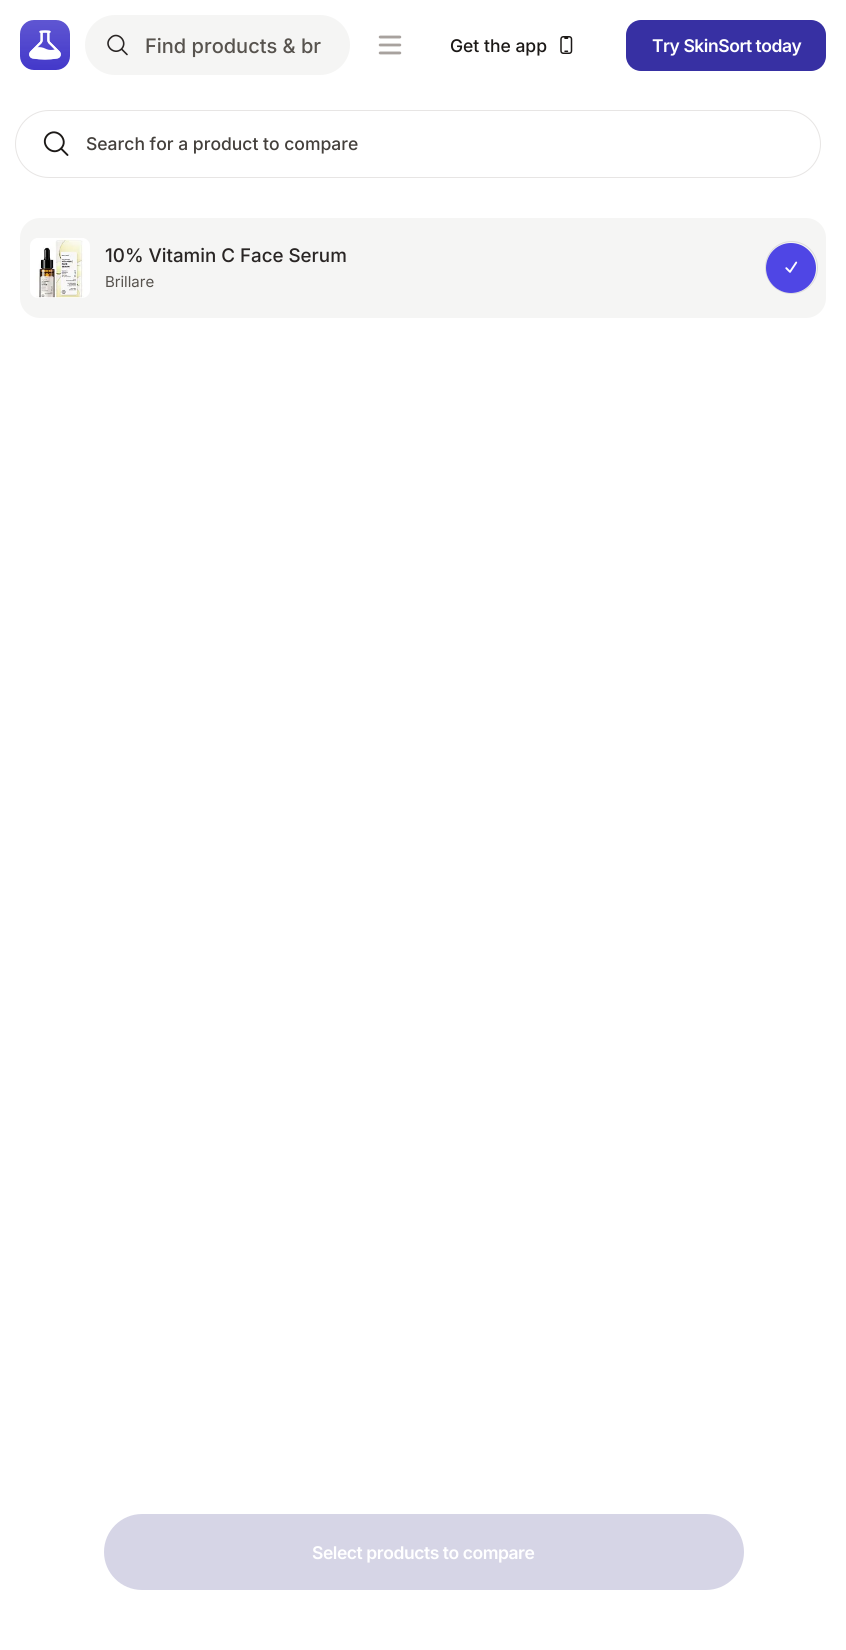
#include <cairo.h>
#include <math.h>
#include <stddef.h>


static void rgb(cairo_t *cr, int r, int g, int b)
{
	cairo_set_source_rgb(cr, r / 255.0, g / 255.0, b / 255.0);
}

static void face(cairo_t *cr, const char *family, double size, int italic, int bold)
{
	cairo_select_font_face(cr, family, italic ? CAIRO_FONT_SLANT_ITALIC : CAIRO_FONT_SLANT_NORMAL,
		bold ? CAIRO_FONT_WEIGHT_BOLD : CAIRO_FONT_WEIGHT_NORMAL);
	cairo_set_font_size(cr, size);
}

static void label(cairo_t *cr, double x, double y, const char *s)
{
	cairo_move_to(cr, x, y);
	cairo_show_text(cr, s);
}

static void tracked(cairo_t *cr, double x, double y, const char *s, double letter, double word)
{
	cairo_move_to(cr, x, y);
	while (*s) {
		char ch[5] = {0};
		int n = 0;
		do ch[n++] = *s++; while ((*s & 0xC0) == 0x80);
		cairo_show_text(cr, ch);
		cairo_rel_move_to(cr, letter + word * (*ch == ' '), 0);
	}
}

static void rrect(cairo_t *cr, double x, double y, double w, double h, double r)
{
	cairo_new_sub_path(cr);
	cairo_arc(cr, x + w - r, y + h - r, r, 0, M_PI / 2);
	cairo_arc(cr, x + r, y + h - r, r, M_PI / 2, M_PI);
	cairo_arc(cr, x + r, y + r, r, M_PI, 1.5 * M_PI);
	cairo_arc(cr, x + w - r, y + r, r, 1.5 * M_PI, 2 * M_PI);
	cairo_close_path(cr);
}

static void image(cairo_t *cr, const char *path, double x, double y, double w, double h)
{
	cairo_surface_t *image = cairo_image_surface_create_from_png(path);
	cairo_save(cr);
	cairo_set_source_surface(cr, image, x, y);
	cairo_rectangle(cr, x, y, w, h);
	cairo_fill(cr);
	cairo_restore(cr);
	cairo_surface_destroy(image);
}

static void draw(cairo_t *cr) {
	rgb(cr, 255, 255, 255);
	cairo_paint(cr);
	image(cr, "image0.png", 20, 20, 50, 50);
	rgb(cr, 245, 245, 244);
	rrect(cr, 85, 15, 265, 60, 30);
	cairo_fill(cr);
	cairo_new_path(cr);
	cairo_move_to(cr, 127, 54.5);
	cairo_line_to(cr, 121.5, 49);
	cairo_move_to(cr, 121.5, 49);
	cairo_curve_to(cr, 128.5, 41.5, 117.5, 30.5, 110.5, 38);
	cairo_curve_to(cr, 103, 45, 114, 56, 121.5, 49);
	cairo_close_path(cr);
	rgb(cr, 41, 37, 36);
	cairo_set_line_width(cr, 1.6);
	cairo_set_line_cap(cr, CAIRO_LINE_CAP_ROUND);
	cairo_set_line_join(cr, CAIRO_LINE_JOIN_ROUND);
	cairo_stroke(cr);
	face(cr, "Inter Medium", 20, 0, 0);
	rgb(cr, 87, 83, 78);
	label(cr, 145, 53, "Find products & br");
	image(cr, "image1.png", 378, 35, 24, 20);
	face(cr, "Inter Medium", 17.5, 0, 0);
	rgb(cr, 28, 25, 23);
	label(cr, 450, 52, "Get the app");
	image(cr, "image2.png", 560, 36, 13, 18);
	rgb(cr, 55, 48, 163);
	rrect(cr, 626, 20, 200, 51, 15);
	cairo_fill(cr);
	face(cr, "Inter SemiBold", 17.5, 0, 0);
	rgb(cr, 255, 255, 255);
	tracked(cr, 652, 52, "Try SkinSort today", -0.45, 0);
	rrect(cr, 15.5, 110.5, 805, 67, 33.5);
	rgb(cr, 231, 229, 228);
	cairo_set_line_width(cr, 1);
	cairo_set_line_cap(cr, CAIRO_LINE_CAP_BUTT);
	cairo_set_line_join(cr, CAIRO_LINE_JOIN_MITER);
	cairo_stroke(cr);
	cairo_new_path(cr);
	cairo_move_to(cr, 67.5, 155);
	cairo_line_to(cr, 61, 148.5);
	cairo_move_to(cr, 61, 148.5);
	cairo_curve_to(cr, 69.5, 140, 56.5, 126.5, 47.5, 135);
	cairo_curve_to(cr, 39, 144, 52.5, 157, 61, 148.5);
	cairo_close_path(cr);
	rgb(cr, 28, 25, 23);
	cairo_set_line_width(cr, 1.9);
	cairo_set_line_cap(cr, CAIRO_LINE_CAP_ROUND);
	cairo_set_line_join(cr, CAIRO_LINE_JOIN_ROUND);
	cairo_stroke(cr);
	face(cr, "Inter Medium", 17.5, 0, 0);
	rgb(cr, 68, 64, 60);
	label(cr, 86, 150, "Search for a product to compare");
	rgb(cr, 245, 245, 244);
	rrect(cr, 20, 218, 806, 100, 20);
	cairo_fill(cr);
	rgb(cr, 255, 255, 255);
	rrect(cr, 30, 238, 60, 60, 8);
	cairo_fill(cr);
	image(cr, "image3.png", 36, 238, 48, 60);
	face(cr, "Inter Medium", 18.75, 0, 0);
	rgb(cr, 41, 37, 36);
	label(cr, 105, 262, "10% Vitamin C Face Serum");
	face(cr, "Inter", 15, 0, 0);
	rgb(cr, 87, 83, 78);
	label(cr, 105, 287, "Brillare");
	cairo_new_path(cr);
	cairo_arc(cr, 791.5, 267.5, 26, 0, 2 * M_PI);
	rgb(cr, 221, 221, 220);
	cairo_set_line_width(cr, 1);
	cairo_set_line_cap(cr, CAIRO_LINE_CAP_BUTT);
	cairo_set_line_join(cr, CAIRO_LINE_JOIN_MITER);
	cairo_stroke(cr);
	rgb(cr, 79, 70, 229);
	cairo_arc(cr, 791, 268, 25, 0, 2 * M_PI);
	cairo_fill(cr);
	image(cr, "image4.png", 785, 261, 13, 12);
	rgb(cr, 214, 213, 230);
	rrect(cr, 104, 1514, 640, 76, 38);
	cairo_fill(cr);
	face(cr, "Inter SemiBold", 17.5, 0, 0);
	rgb(cr, 255, 255, 255);
	tracked(cr, 312, 1559, "Select products to compare", -0.45, 0);
}

int main(void) {
	cairo_surface_t *surface = cairo_image_surface_create(CAIRO_FORMAT_RGB24, 846, 1650);
	cairo_t *cr = cairo_create(surface);
	cairo_font_options_t *options = cairo_font_options_create();
	cairo_font_options_set_hint_metrics(options, CAIRO_HINT_METRICS_OFF);
	cairo_font_options_set_hint_style(options, CAIRO_HINT_STYLE_NONE);
	cairo_set_font_options(cr, options);
	cairo_set_miter_limit(cr, 4);
	draw(cr);
	cairo_surface_write_to_png(surface, "render.png");
	cairo_font_options_destroy(options);
	cairo_destroy(cr);
	cairo_surface_destroy(surface);
	return 0;
}
